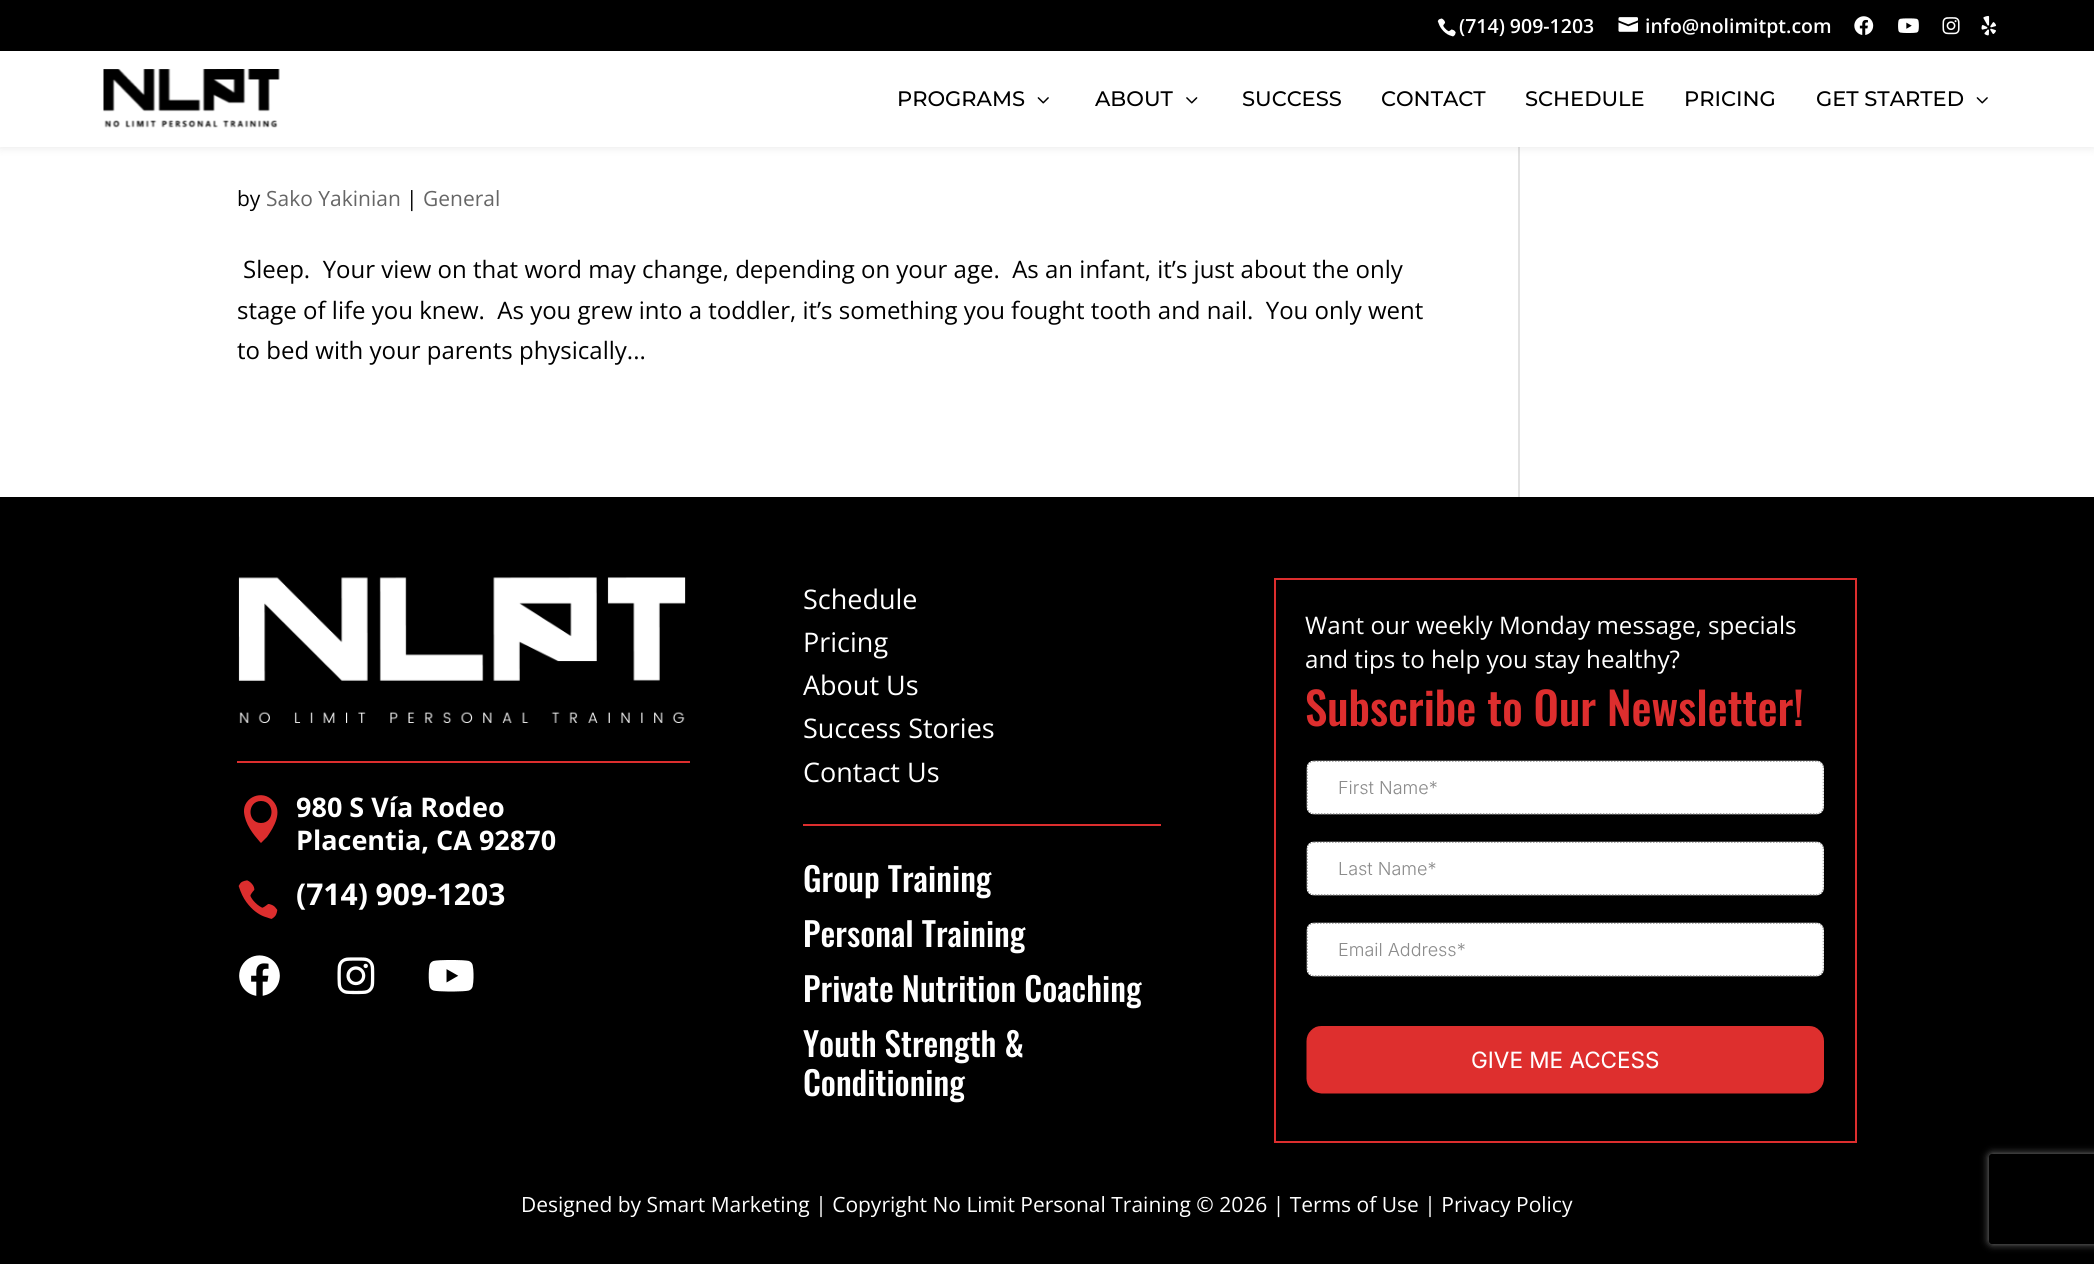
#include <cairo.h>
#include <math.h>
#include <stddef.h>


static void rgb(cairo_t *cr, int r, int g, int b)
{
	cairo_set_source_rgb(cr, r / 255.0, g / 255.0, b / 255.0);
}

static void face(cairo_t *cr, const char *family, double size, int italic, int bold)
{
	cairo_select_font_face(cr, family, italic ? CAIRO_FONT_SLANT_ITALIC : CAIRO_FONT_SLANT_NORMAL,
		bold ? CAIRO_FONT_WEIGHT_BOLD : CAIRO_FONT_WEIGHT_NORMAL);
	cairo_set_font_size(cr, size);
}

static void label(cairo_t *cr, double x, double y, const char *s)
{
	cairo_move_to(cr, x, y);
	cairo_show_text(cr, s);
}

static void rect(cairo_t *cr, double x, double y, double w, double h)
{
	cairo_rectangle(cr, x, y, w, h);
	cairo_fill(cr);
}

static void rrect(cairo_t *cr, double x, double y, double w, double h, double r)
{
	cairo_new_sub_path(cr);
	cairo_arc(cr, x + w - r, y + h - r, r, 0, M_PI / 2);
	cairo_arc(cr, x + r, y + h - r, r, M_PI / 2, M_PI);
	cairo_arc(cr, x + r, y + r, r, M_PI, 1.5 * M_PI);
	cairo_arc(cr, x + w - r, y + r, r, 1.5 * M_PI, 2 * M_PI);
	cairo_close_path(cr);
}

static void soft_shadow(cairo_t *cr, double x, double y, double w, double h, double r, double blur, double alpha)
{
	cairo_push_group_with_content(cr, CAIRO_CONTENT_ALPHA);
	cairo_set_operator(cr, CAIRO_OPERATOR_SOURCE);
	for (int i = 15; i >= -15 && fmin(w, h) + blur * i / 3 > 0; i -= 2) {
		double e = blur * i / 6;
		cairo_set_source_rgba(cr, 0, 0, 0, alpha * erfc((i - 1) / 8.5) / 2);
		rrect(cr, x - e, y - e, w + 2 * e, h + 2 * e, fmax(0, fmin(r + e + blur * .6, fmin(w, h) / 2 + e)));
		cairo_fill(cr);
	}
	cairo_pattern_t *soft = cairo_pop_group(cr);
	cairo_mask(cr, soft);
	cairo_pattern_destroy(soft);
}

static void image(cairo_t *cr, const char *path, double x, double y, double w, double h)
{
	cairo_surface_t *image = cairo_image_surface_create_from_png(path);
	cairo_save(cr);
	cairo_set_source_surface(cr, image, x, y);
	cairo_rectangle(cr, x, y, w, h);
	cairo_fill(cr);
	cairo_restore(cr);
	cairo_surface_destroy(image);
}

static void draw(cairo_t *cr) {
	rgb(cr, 255, 255, 255);
	cairo_paint(cr);
	rgb(cr, 226, 226, 226);
	rect(cr, 1518, 147, 2, 350);
	rgb(cr, 0, 0, 0);
	soft_shadow(cr, 0, 51, 2094, 96, 0, 5, 0.1);
	rgb(cr, 0, 0, 0);
	rect(cr, 0, 0, 2094, 51);
	image(cr, "image0.png", 1437, 18, 19, 19);
	face(cr, "Open Sans SemiBold", 19.5, 0, 0);
	rgb(cr, 255, 255, 255);
	label(cr, 1459, 33, "(714) 909-1203");
	image(cr, "image1.png", 1618, 17, 20, 15);
	label(cr, 1645, 33, "info@nolimitpt.com");
	image(cr, "image2.png", 1854, 16, 20, 19);
	image(cr, "image3.png", 1898, 18, 21, 15);
	image(cr, "image4.png", 1942, 17, 18, 18);
	image(cr, "image5.png", 1981, 15, 16, 21);
	rect(cr, 0, 51, 2094, 96);
	image(cr, "image6.png", 103, 69, 177, 59);
	face(cr, "Montserrat Thin", 21, 0, 0);
	rgb(cr, 0, 0, 0);
	label(cr, 897, 106, "PROGRAMS");
	image(cr, "image7.png", 1037, 97, 12, 7);
	label(cr, 1095, 106, "ABOUT");
	image(cr, "image8.png", 1186, 97, 12, 7);
	label(cr, 1242, 106, "SUCCESS");
	label(cr, 1381, 106, "CONTACT");
	label(cr, 1525, 106, "SCHEDULE");
	label(cr, 1684, 106, "PRICING");
	label(cr, 1816, 106, "GET STARTED");
	image(cr, "image7.png", 1976, 97, 12, 7);
	face(cr, "Open Sans", 21, 0, 0);
	label(cr, 237, 206, "by");
	rgb(cr, 102, 102, 102);
	label(cr, 266, 206, "Sako Yakinian");
	rgb(cr, 0, 0, 0);
	label(cr, 406, 206, "|");
	rgb(cr, 102, 102, 102);
	label(cr, 423, 206, "General");
	face(cr, "Open Sans", 24, 0, 0);
	rgb(cr, 0, 0, 0);
	label(cr, 243, 278, "Sleep.  Your view on that word may change, depending on your age.  As an infant, it’s just about the only");
	label(cr, 237, 319, "stage of life you knew.  As you grew into a toddler, it’s something you fought tooth and nail.  You only went");
	label(cr, 237, 359, "to bed with your parents physically...");
	rect(cr, 0, 497, 2094, 767);
	face(cr, "Open Sans", 27, 0, 0);
	rgb(cr, 255, 255, 255);
	label(cr, 803, 609, "Schedule");
	label(cr, 803, 652, "Pricing");
	label(cr, 803, 695, "About Us");
	label(cr, 803, 738, "Success Stories");
	label(cr, 803, 782, "Contact Us");
	rgb(cr, 221, 46, 46);
	rect(cr, 803, 824, 358, 2);
	face(cr, "Oswald Medium", 33.1, 0, 0);
	rgb(cr, 255, 255, 255);
	label(cr, 803, 892, "Group Training");
	label(cr, 803, 947, "Personal Training");
	label(cr, 803, 1002, "Private Nutrition Coaching");
	label(cr, 803, 1057, "Youth Strength &");
	label(cr, 803, 1096, "Conditioning");
	cairo_rectangle(cr, 1275, 579, 581, 563);
	rgb(cr, 221, 46, 46);
	cairo_stroke(cr);
	face(cr, "Open Sans", 24.15, 0, 0);
	rgb(cr, 255, 255, 255);
	label(cr, 1305, 634, "Want our weekly Monday message, specials");
	label(cr, 1305, 668, "and tips to help you stay healthy?");
	face(cr, "Oswald Medium", 45, 0, 0);
	rgb(cr, 221, 46, 46);
	label(cr, 1305, 726, "Subscribe to Our Newsletter!");
	image(cr, "image9.png", 1306, 760, 518, 334);
	image(cr, "image10.png", 238, 577, 448, 146);
	rect(cr, 237, 761, 453, 2);
	cairo_new_path(cr);
	cairo_move_to(cr, 260, 842);
	cairo_line_to(cr, 261, 843);
	cairo_line_to(cr, 267, 837);
	cairo_curve_to(cr, 274, 827, 283, 812, 273, 801);
	cairo_curve_to(cr, 263, 789, 243, 797, 244, 812);
	cairo_curve_to(cr, 245, 824, 253, 834, 260, 842);
	cairo_close_path(cr);
	cairo_move_to(cr, 261, 801);
	cairo_curve_to(cr, 275, 801, 275, 823, 261, 823);
	cairo_curve_to(cr, 247, 823, 247, 801, 261, 801);
	cairo_close_path(cr);
	cairo_fill(cr);
	face(cr, "Open Sans", 27, 0, 1);
	rgb(cr, 255, 255, 255);
	label(cr, 296, 817, "980 S Vía Rodeo");
	label(cr, 296, 850, "Placentia, CA 92870");
	image(cr, "image11.png", 238, 880, 40, 39);
	face(cr, "Open Sans", 30, 0, 1);
	label(cr, 296, 905, "(714) 909-1203");
	image(cr, "image12.png", 239, 955, 41, 41);
	image(cr, "image13.png", 337, 957, 38, 38);
	image(cr, "image14.png", 428, 960, 46, 32);
	face(cr, "Open Sans", 21, 0, 0);
	label(cr, 521, 1212, "Designed by Smart Marketing | Copyright No Limit Personal Training © 2026 | Terms of Use | Privacy Policy");
	cairo_save(cr);
	cairo_set_fill_rule(cr, CAIRO_FILL_RULE_EVEN_ODD);
	cairo_new_path(cr);
	cairo_move_to(cr, 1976, 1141);
	cairo_line_to(cr, 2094, 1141);
	cairo_line_to(cr, 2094, 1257);
	cairo_line_to(cr, 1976, 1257);
	cairo_close_path(cr);
	cairo_move_to(cr, 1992, 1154);
	cairo_line_to(cr, 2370, 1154);
	cairo_curve_to(cr, 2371.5, 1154, 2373, 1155.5, 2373, 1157);
	cairo_line_to(cr, 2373, 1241);
	cairo_curve_to(cr, 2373, 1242.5, 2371.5, 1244, 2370, 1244);
	cairo_line_to(cr, 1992, 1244);
	cairo_curve_to(cr, 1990.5, 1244, 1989, 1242.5, 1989, 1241);
	cairo_line_to(cr, 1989, 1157);
	cairo_curve_to(cr, 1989, 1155.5, 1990.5, 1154, 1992, 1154);
	cairo_close_path(cr);
	cairo_clip(cr);
	rgb(cr, 128, 128, 128);
	soft_shadow(cr, 1989, 1154, 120, 90, 3, 4, 1);
	cairo_restore(cr);
}

int main(void) {
	cairo_surface_t *surface = cairo_image_surface_create(CAIRO_FORMAT_RGB24, 2094, 1264);
	cairo_t *cr = cairo_create(surface);
	cairo_font_options_t *options = cairo_font_options_create();
	cairo_font_options_set_hint_metrics(options, CAIRO_HINT_METRICS_OFF);
	cairo_font_options_set_hint_style(options, CAIRO_HINT_STYLE_NONE);
	cairo_set_font_options(cr, options);
	cairo_set_miter_limit(cr, 4);
	draw(cr);
	cairo_surface_write_to_png(surface, "render.png");
	cairo_font_options_destroy(options);
	cairo_destroy(cr);
	cairo_surface_destroy(surface);
	return 0;
}
